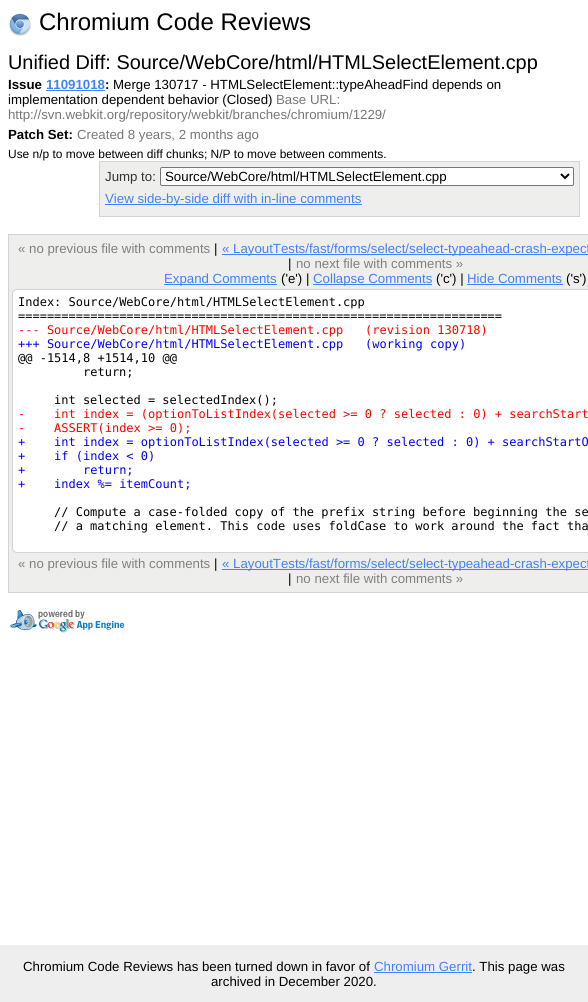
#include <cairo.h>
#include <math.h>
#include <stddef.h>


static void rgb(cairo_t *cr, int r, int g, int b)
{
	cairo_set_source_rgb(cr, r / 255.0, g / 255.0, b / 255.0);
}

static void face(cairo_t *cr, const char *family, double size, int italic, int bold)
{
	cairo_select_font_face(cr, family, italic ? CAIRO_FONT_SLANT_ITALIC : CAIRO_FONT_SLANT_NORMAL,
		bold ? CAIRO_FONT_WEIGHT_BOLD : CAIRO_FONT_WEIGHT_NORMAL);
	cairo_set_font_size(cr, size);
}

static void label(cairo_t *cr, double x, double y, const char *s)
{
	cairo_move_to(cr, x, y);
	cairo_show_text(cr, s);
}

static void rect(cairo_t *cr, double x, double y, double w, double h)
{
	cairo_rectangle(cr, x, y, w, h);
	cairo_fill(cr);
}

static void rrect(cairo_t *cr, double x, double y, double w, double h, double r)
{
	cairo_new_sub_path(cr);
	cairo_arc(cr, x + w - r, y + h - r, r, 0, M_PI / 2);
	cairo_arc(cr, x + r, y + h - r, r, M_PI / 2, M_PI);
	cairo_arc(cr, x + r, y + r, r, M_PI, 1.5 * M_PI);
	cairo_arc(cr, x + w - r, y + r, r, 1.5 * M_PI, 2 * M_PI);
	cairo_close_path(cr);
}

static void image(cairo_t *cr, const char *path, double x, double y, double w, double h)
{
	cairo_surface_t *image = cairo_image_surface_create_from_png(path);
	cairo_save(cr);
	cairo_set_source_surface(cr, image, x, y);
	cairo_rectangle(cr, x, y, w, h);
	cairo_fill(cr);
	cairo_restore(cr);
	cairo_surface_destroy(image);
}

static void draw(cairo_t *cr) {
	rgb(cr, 255, 255, 255);
	cairo_paint(cr);
	image(cr, "image0.png", 9, 13, 22, 23);
	face(cr, "Liberation Sans", 24, 0, 0);
	rgb(cr, 0, 0, 0);
	label(cr, 39, 30, "Chromium Code Reviews");
	face(cr, "Liberation Sans", 19.9, 0, 0);
	label(cr, 8, 69, "Unified Diff: Source/WebCore/html/HTMLSelectElement.cpp");
	face(cr, "Liberation Sans", 13.25, 0, 1);
	label(cr, 8, 89, "Issue");
	rgb(cr, 65, 130, 250);
	label(cr, 46, 89, "11091018");
	rgb(cr, 0, 0, 0);
	label(cr, 105, 89, ":");
	rgb(cr, 65, 130, 250);
	rect(cr, 46, 90, 59, 1);
	face(cr, "Liberation Sans", 13.25, 0, 0);
	rgb(cr, 0, 0, 0);
	label(cr, 113, 89, "Merge 130717 - HTMLSelectElement::typeAheadFind depends on");
	label(cr, 8, 104, "implementation dependent behavior (Closed)");
	rgb(cr, 119, 119, 119);
	label(cr, 276, 104, "Base URL:");
	label(cr, 8, 119, "http://svn.webkit.org/repository/webkit/branches/chromium/1229/");
	face(cr, "Liberation Sans", 13.25, 0, 1);
	rgb(cr, 0, 0, 0);
	label(cr, 8, 139, "Patch Set:");
	face(cr, "Liberation Sans", 13.25, 0, 0);
	rgb(cr, 119, 119, 119);
	label(cr, 77, 139, "Created 8 years, 2 months ago");
	face(cr, "Liberation Sans", 11.95, 0, 0);
	rgb(cr, 0, 0, 0);
	label(cr, 8, 158, "Use n/p to move between diff chunks; N/P to move between comments.");
	rgb(cr, 238, 238, 236);
	cairo_rectangle(cr, 99.5, 161.5, 480, 55);
	cairo_fill_preserve(cr);
	rgb(cr, 211, 211, 211);
	cairo_set_line_width(cr, 1);
	cairo_stroke(cr);
	face(cr, "Liberation Sans", 13.25, 0, 0);
	rgb(cr, 51, 51, 51);
	label(cr, 105, 181, "Jump to:");
	rgb(cr, 255, 255, 255);
	rrect(cr, 160.5, 167.5, 413, 18, 1.5);
	cairo_fill_preserve(cr);
	rgb(cr, 118, 118, 118);
	cairo_stroke(cr);
	cairo_new_path(cr);
	cairo_move_to(cr, 561, 174);
	cairo_line_to(cr, 565, 178);
	cairo_line_to(cr, 569, 174);
	rgb(cr, 0, 0, 0);
	cairo_set_line_width(cr, 2);
	cairo_stroke(cr);
	face(cr, "Liberation Sans", 13.3, 0, 0);
	label(cr, 165, 181, "Source/WebCore/html/HTMLSelectElement.cpp");
	rgb(cr, 65, 130, 250);
	rect(cr, 105, 204, 257, 1);
	face(cr, "Liberation Sans", 13.25, 0, 0);
	label(cr, 105, 203, "View side-by-side diff with in-line comments");
	rgb(cr, 238, 238, 236);
	cairo_rectangle(cr, 8.5, 234.5, 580, 358);
	cairo_fill_preserve(cr);
	rgb(cr, 211, 211, 211);
	cairo_set_line_width(cr, 1);
	cairo_stroke(cr);
	rgb(cr, 128, 128, 128);
	label(cr, 18, 253, "« no previous file with comments");
	rgb(cr, 0, 0, 0);
	label(cr, 214, 253, "|");
	rgb(cr, 65, 130, 250);
	rect(cr, 222, 254, 366, 1);
	label(cr, 222, 253, "« LayoutTests/fast/forms/select/select-typeahead-crash-expect");
	rgb(cr, 0, 0, 0);
	label(cr, 288, 268, "|");
	rgb(cr, 128, 128, 128);
	label(cr, 296, 268, "no next file with comments »");
	rgb(cr, 65, 130, 250);
	rect(cr, 164, 284, 113, 1);
	label(cr, 164, 283, "Expand Comments");
	rgb(cr, 0, 0, 0);
	label(cr, 281, 283, "('e') |");
	rgb(cr, 65, 130, 250);
	rect(cr, 313, 284, 119, 1);
	label(cr, 313, 283, "Collapse Comments");
	rgb(cr, 0, 0, 0);
	label(cr, 436, 283, "('c') |");
	rgb(cr, 65, 130, 250);
	label(cr, 467, 283, "Hide Comments");
	rect(cr, 467, 284, 96, 1);
	rgb(cr, 0, 0, 0);
	label(cr, 566, 283, "('s')");
	rgb(cr, 255, 255, 255);
	rrect(cr, 12.5, 289.5, 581, 263, 4.5);
	cairo_fill_preserve(cr);
	rgb(cr, 211, 211, 211);
	cairo_stroke(cr);
	face(cr, "DejaVu Sans Mono", 12, 0, 0);
	rgb(cr, 0, 0, 0);
	label(cr, 18, 306, "Index: Source/WebCore/html/HTMLSelectElement.cpp");
	label(cr, 18, 320, "===================================================================");
	rgb(cr, 255, 0, 0);
	label(cr, 18, 334, "--- Source/WebCore/html/HTMLSelectElement.cpp");
	label(cr, 365, 334, "(revision 130718)");
	rgb(cr, 0, 0, 255);
	label(cr, 18, 348, "+++ Source/WebCore/html/HTMLSelectElement.cpp");
	label(cr, 365, 348, "(working copy)");
	rgb(cr, 0, 0, 0);
	label(cr, 18, 362, "@@ -1514,8 +1514,10 @@");
	label(cr, 83, 376, "return;");
	label(cr, 54, 404, "int selected = selectedIndex();");
	rgb(cr, 255, 0, 0);
	label(cr, 18, 418, "-    int index = (optionToListIndex(selected >= 0 ? selected : 0) + searchStart");
	label(cr, 18, 432, "-    ASSERT(index >= 0);");
	rgb(cr, 0, 0, 255);
	label(cr, 18, 446, "+    int index = optionToListIndex(selected >= 0 ? selected : 0) + searchStartO");
	label(cr, 18, 460, "+    if (index < 0)");
	label(cr, 18, 474, "+        return;");
	label(cr, 18, 488, "+    index %= itemCount;");
	rgb(cr, 0, 0, 0);
	label(cr, 54, 516, "// Compute a case-folded copy of the prefix string before beginning the se");
	label(cr, 54, 530, "// a matching element. This code uses foldCase to work around the fact tha");
	face(cr, "Liberation Sans", 13.25, 0, 0);
	rgb(cr, 128, 128, 128);
	label(cr, 18, 568, "« no previous file with comments");
	rgb(cr, 0, 0, 0);
	label(cr, 214, 568, "|");
	rgb(cr, 65, 130, 250);
	rect(cr, 222, 569, 366, 1);
	label(cr, 222, 568, "« LayoutTests/fast/forms/select/select-typeahead-crash-expect");
	rgb(cr, 0, 0, 0);
	label(cr, 288, 583, "|");
	rgb(cr, 128, 128, 128);
	label(cr, 296, 583, "no next file with comments »");
	image(cr, "image1.png", 10, 610, 115, 23);
	rgb(cr, 238, 238, 238);
	rect(cr, 0, 945, 588, 57);
	rgb(cr, 0, 0, 0);
	label(cr, 23, 971, "Chromium Code Reviews has been turned down in favor of");
	rgb(cr, 65, 130, 250);
	label(cr, 374, 971, "Chromium Gerrit");
	rect(cr, 374, 972, 98, 1);
	rgb(cr, 0, 0, 0);
	label(cr, 472, 971, ". This page was");
	label(cr, 211, 986, "archived in December 2020.");
}

int main(void) {
	cairo_surface_t *surface = cairo_image_surface_create(CAIRO_FORMAT_RGB24, 588, 1002);
	cairo_t *cr = cairo_create(surface);
	cairo_font_options_t *options = cairo_font_options_create();
	cairo_font_options_set_hint_metrics(options, CAIRO_HINT_METRICS_OFF);
	cairo_font_options_set_hint_style(options, CAIRO_HINT_STYLE_NONE);
	cairo_set_font_options(cr, options);
	cairo_set_miter_limit(cr, 4);
	draw(cr);
	cairo_surface_write_to_png(surface, "render.png");
	cairo_font_options_destroy(options);
	cairo_destroy(cr);
	cairo_surface_destroy(surface);
	return 0;
}
